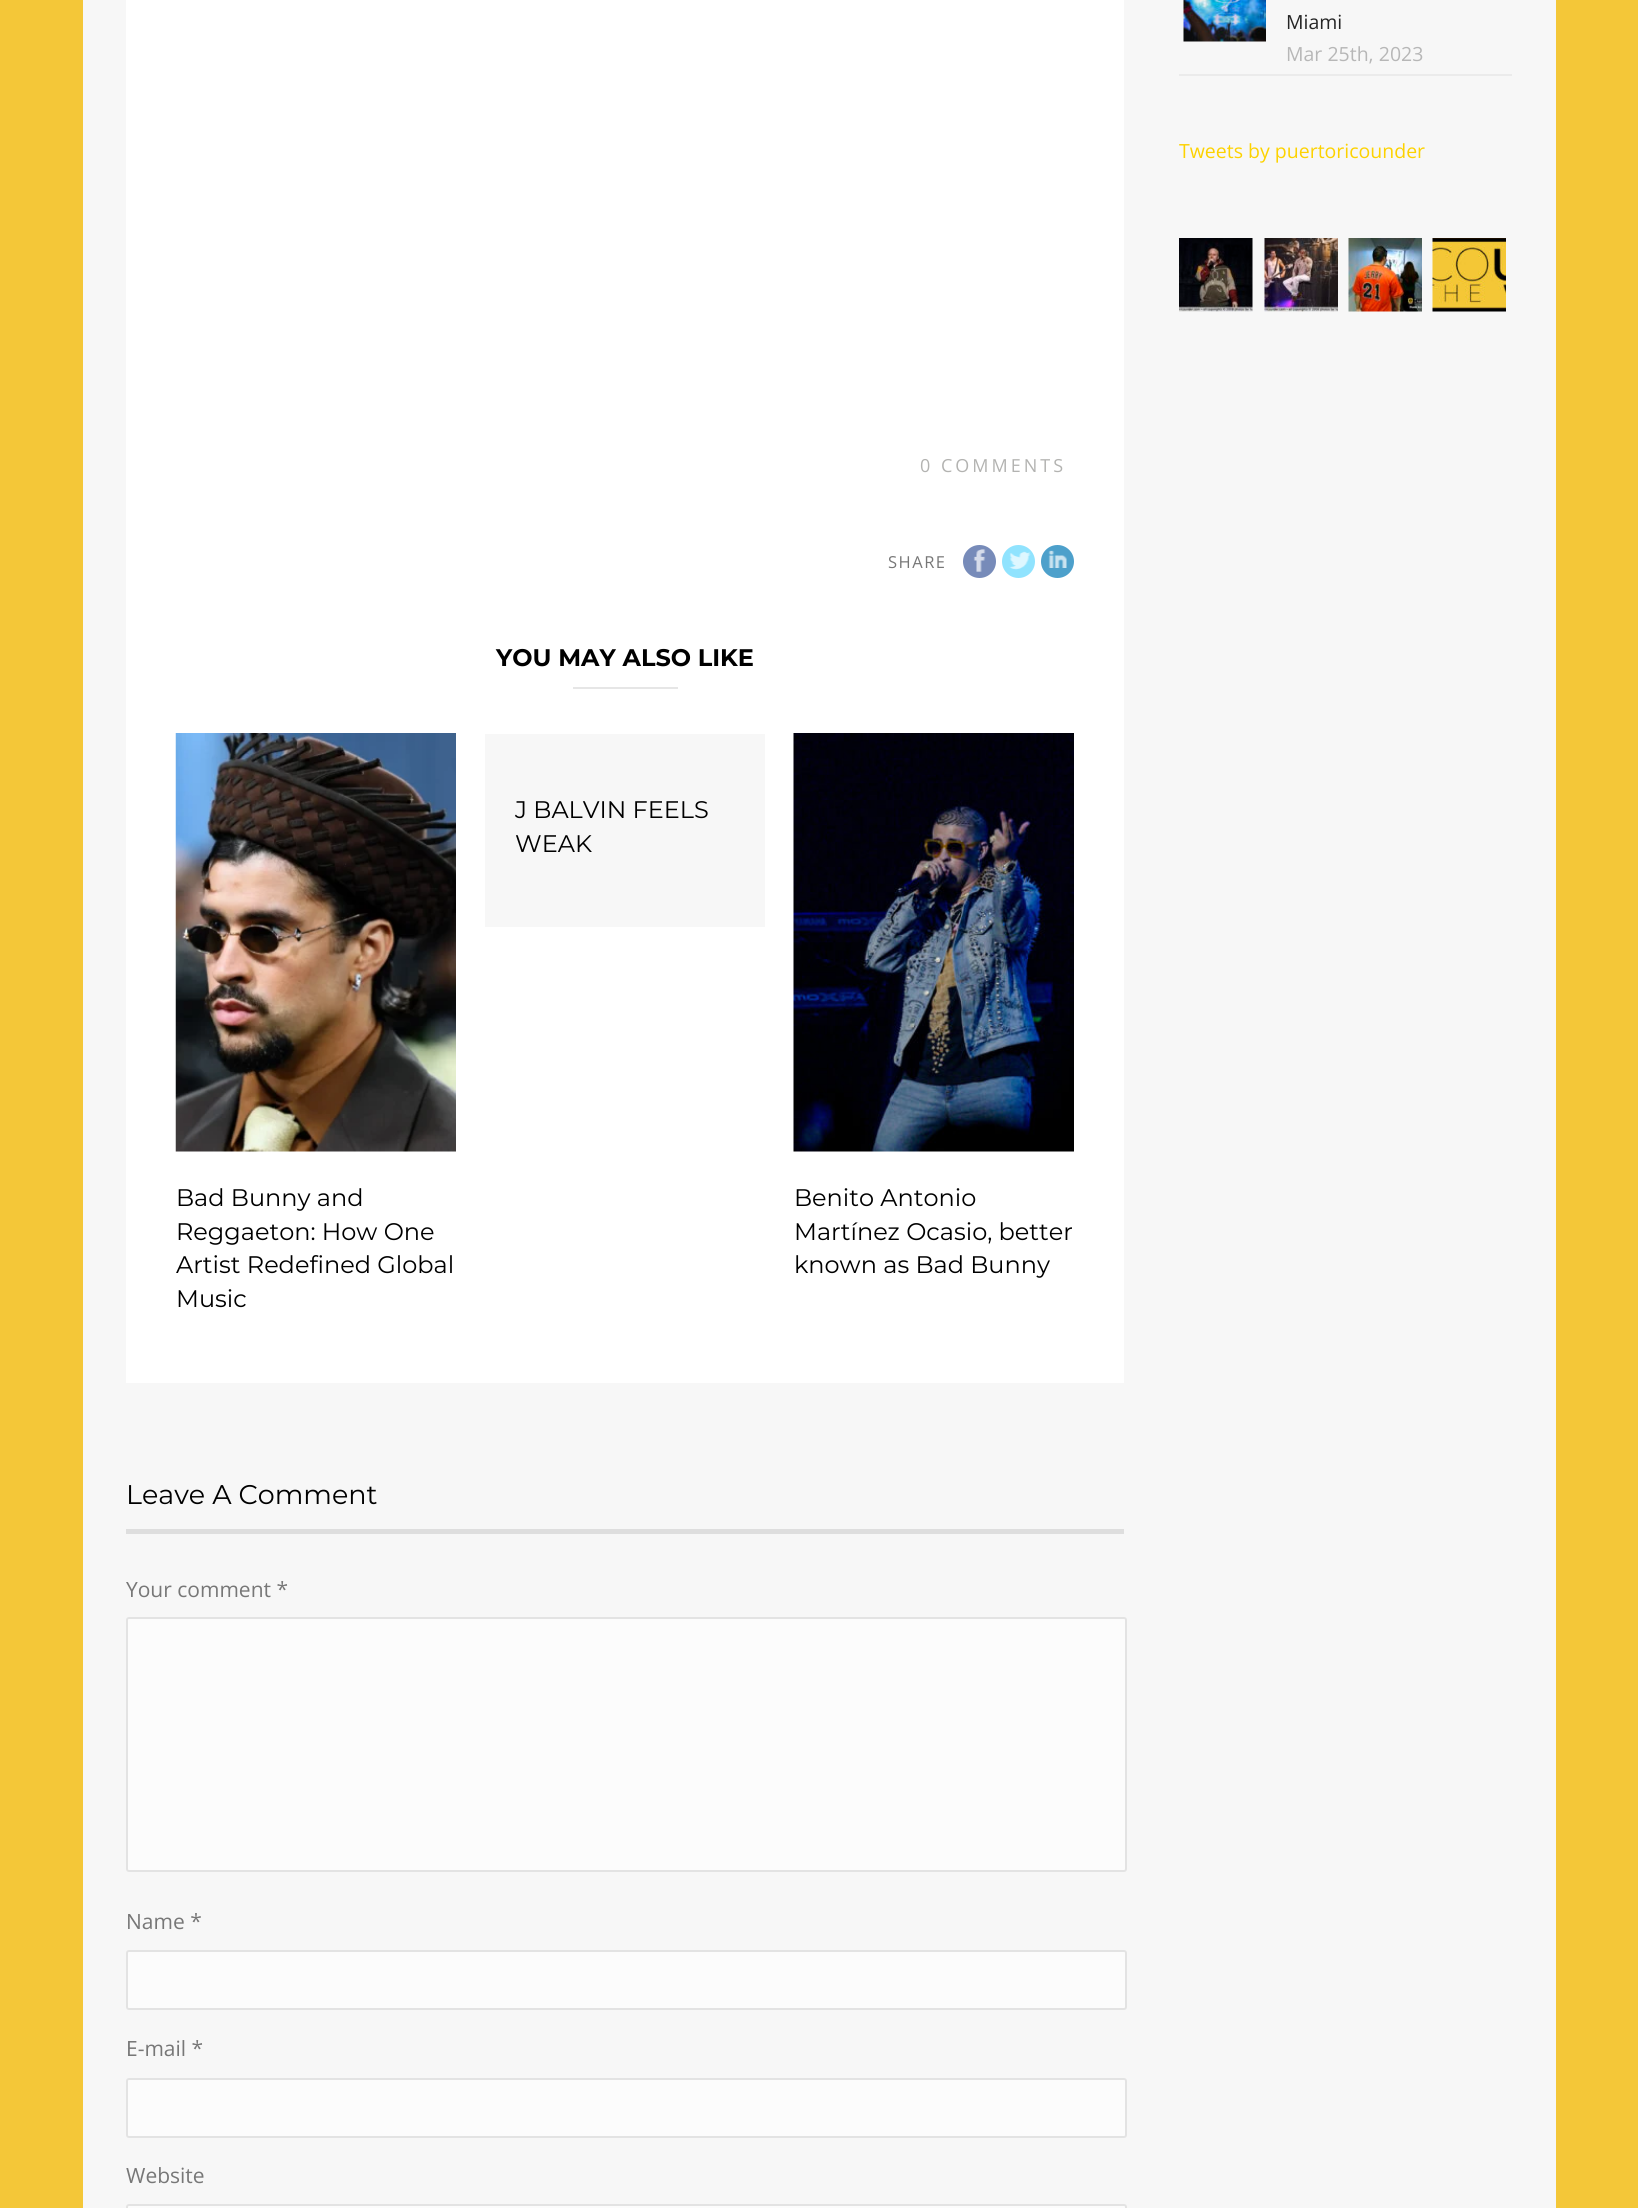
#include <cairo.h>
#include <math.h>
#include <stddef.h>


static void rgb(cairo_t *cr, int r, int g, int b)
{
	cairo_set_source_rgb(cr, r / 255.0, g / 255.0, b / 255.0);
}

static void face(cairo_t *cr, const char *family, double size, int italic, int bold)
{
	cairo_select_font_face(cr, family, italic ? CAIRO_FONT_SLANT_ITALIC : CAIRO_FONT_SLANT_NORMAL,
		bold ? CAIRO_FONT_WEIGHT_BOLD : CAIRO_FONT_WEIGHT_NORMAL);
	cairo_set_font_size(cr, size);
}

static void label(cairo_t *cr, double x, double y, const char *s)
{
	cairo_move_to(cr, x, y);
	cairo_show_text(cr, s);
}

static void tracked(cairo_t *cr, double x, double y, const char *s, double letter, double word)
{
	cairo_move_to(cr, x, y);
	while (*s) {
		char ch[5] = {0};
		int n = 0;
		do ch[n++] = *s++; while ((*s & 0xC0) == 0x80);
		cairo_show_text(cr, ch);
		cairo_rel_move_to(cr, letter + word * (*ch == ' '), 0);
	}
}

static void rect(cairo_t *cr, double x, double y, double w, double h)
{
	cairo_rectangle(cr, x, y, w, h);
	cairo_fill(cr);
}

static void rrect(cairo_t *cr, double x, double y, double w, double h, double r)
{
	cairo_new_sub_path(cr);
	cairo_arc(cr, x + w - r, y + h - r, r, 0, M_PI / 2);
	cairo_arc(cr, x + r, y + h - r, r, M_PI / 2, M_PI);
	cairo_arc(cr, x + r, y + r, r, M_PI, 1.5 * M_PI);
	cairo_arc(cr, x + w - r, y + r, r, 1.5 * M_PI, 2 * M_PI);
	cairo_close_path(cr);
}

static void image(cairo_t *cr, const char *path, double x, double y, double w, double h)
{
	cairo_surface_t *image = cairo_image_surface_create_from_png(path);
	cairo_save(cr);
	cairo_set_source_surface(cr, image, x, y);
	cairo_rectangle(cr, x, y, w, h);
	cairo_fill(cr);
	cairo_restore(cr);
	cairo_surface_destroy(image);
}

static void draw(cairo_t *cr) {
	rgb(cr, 244, 199, 56);
	cairo_paint(cr);
	rgb(cr, 247, 247, 247);
	rect(cr, 83, 0, 1473, 2208);
	rgb(cr, 235, 235, 235);
	rect(cr, 1179, 74, 333, 2);
	image(cr, "image0.png", 1183, 0, 83, 42);
	face(cr, "Open Sans", 19.5, 0, 0);
	rgb(cr, 37, 37, 37);
	label(cr, 1286, 29, "Miami");
	rgb(cr, 183, 183, 183);
	label(cr, 1286, 61, "Mar 25th, 2023");
	rgb(cr, 253, 210, 0);
	label(cr, 1179, 158, "Tweets by puertoricounder");
	image(cr, "image1.png", 1179, 238, 74, 74);
	image(cr, "image2.png", 1264, 238, 74, 74);
	image(cr, "image3.png", 1348, 238, 74, 74);
	image(cr, "image4.png", 1432, 238, 74, 74);
	rgb(cr, 255, 255, 255);
	rect(cr, 126, 0, 998, 1383);
	face(cr, "Open Sans", 18, 0, 0);
	rgb(cr, 179, 179, 177);
	tracked(cr, 920, 472, "0 COMMENTS", 3, 0);
	face(cr, "Open Sans", 16.5, 0, 0);
	rgb(cr, 119, 119, 119);
	tracked(cr, 888, 568, "SHARE", 1.5, 0);
	rgb(cr, 119, 139, 185);
	cairo_new_path(cr);
	cairo_arc(cr, 979.5, 561.5, 16.5, 0, 2 * M_PI);
	cairo_fill(cr);
	image(cr, "image5.png", 973, 549, 13, 23);
	rgb(cr, 144, 227, 254);
	cairo_arc(cr, 1018.5, 561.5, 16.5, 0, 2 * M_PI);
	cairo_fill(cr);
	image(cr, "image6.png", 1009, 551, 22, 19);
	rgb(cr, 77, 160, 203);
	cairo_arc(cr, 1057.5, 561.5, 16.5, 0, 2 * M_PI);
	cairo_fill(cr);
	image(cr, "image7.png", 1048, 550, 19, 18);
	face(cr, "Montserrat", 24, 0, 1);
	rgb(cr, 0, 0, 0);
	label(cr, 496, 666, "YOU MAY ALSO LIKE");
	rgb(cr, 230, 230, 230);
	rect(cr, 573, 687, 105, 2);
	rgb(cr, 247, 247, 247);
	rect(cr, 485, 734, 280, 193);
	face(cr, "Montserrat", 24, 0, 0);
	rgb(cr, 0, 0, 0);
	label(cr, 515, 818, "J BALVIN FEELS");
	label(cr, 515, 852, "WEAK");
	image(cr, "image8.png", 175, 733, 281, 419);
	label(cr, 176, 1206, "Bad Bunny and");
	label(cr, 176, 1240, "Reggaeton: How One");
	label(cr, 176, 1273, "Artist Redefined Global");
	label(cr, 176, 1307, "Music");
	image(cr, "image9.png", 793, 733, 281, 419);
	label(cr, 794, 1206, "Benito Antonio");
	label(cr, 794, 1240, "Martínez Ocasio, better");
	label(cr, 794, 1273, "known as Bad Bunny");
	rgb(cr, 222, 222, 222);
	rect(cr, 126, 1529, 998, 5);
	face(cr, "Montserrat", 27, 0, 0);
	rgb(cr, 0, 0, 0);
	label(cr, 126, 1504, "Leave A Comment");
	face(cr, "Open Sans", 21, 0, 0);
	rgb(cr, 119, 119, 119);
	label(cr, 126, 1597, "Your comment *");
	rgb(cr, 252, 252, 252);
	rrect(cr, 127, 1618, 999, 253, 2);
	cairo_fill_preserve(cr);
	rgb(cr, 227, 227, 227);
	cairo_stroke(cr);
	rgb(cr, 119, 119, 119);
	label(cr, 126, 1929, "Name *");
	rgb(cr, 252, 252, 252);
	rrect(cr, 127, 1951, 999, 58, 2);
	cairo_fill_preserve(cr);
	rgb(cr, 227, 227, 227);
	cairo_stroke(cr);
	rgb(cr, 119, 119, 119);
	label(cr, 126, 2056, "E-mail *");
	rgb(cr, 252, 252, 252);
	rrect(cr, 127, 2079, 999, 58, 2);
	cairo_fill_preserve(cr);
	rgb(cr, 227, 227, 227);
	cairo_stroke(cr);
	rgb(cr, 119, 119, 119);
	label(cr, 126, 2183, "Website");
	rgb(cr, 252, 252, 252);
	rrect(cr, 127, 2205, 999, 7, 2);
	cairo_fill_preserve(cr);
	rgb(cr, 227, 227, 227);
	cairo_stroke(cr);
}

int main(void) {
	cairo_surface_t *surface = cairo_image_surface_create(CAIRO_FORMAT_RGB24, 1638, 2208);
	cairo_t *cr = cairo_create(surface);
	cairo_font_options_t *options = cairo_font_options_create();
	cairo_font_options_set_hint_metrics(options, CAIRO_HINT_METRICS_OFF);
	cairo_font_options_set_hint_style(options, CAIRO_HINT_STYLE_NONE);
	cairo_set_font_options(cr, options);
	cairo_set_miter_limit(cr, 4);
	draw(cr);
	cairo_surface_write_to_png(surface, "render.png");
	cairo_font_options_destroy(options);
	cairo_destroy(cr);
	cairo_surface_destroy(surface);
	return 0;
}
